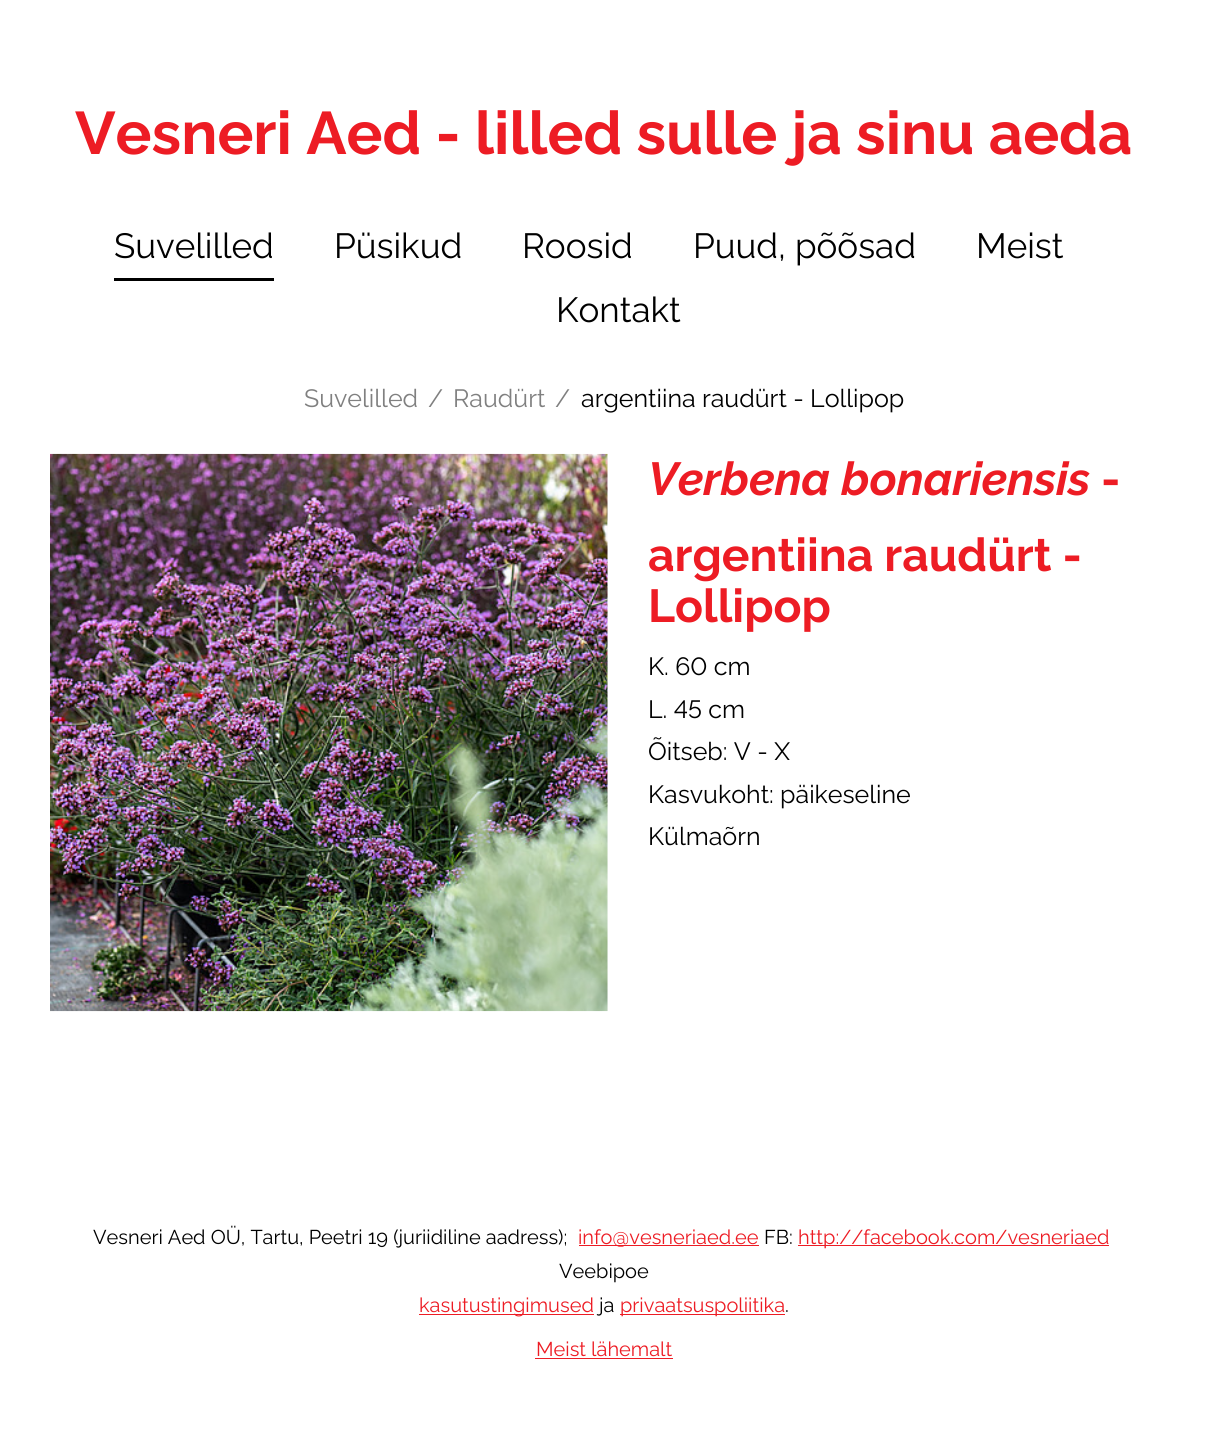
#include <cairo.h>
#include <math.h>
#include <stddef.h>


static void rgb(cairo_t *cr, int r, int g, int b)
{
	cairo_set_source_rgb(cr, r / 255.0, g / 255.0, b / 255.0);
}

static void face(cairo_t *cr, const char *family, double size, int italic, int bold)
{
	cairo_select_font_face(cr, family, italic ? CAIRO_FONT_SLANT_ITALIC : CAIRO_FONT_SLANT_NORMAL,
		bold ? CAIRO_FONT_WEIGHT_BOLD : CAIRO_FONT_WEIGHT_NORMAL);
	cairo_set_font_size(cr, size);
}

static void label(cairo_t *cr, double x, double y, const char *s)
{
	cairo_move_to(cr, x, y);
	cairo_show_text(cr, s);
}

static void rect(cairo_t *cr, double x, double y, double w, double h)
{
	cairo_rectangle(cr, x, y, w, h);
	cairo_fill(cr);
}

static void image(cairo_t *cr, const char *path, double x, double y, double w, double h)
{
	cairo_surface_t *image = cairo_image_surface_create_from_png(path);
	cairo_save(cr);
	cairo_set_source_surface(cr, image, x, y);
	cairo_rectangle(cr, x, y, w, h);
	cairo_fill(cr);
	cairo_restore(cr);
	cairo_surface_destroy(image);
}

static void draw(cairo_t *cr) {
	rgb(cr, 255, 255, 255);
	cairo_paint(cr);
	face(cr, "Raleway", 60, 0, 1);
	rgb(cr, 237, 28, 36);
	label(cr, 75, 154, "Vesneri Aed - lilled sulle ja sinu aeda");
	rgb(cr, 0, 0, 0);
	rect(cr, 114, 278, 160, 3);
	face(cr, "Raleway", 35, 0, 0);
	label(cr, 114, 258, "Suvelilled");
	label(cr, 334, 258, "Püsikud");
	label(cr, 522, 258, "Roosid");
	label(cr, 693, 258, "Puud, põõsad");
	label(cr, 976, 258, "Meist");
	label(cr, 556, 322, "Kontakt");
	face(cr, "Raleway", 25, 0, 0);
	rgb(cr, 128, 128, 128);
	label(cr, 304, 407, "Suvelilled");
	label(cr, 428, 407, "/");
	label(cr, 453, 407, "Raudürt");
	label(cr, 555, 407, "/");
	rgb(cr, 0, 0, 0);
	label(cr, 581, 407, "argentiina raudürt - Lollipop");
	rgb(cr, 251, 251, 251);
	rect(cr, 607, 454, 1, 557);
	image(cr, "image0.png", 50, 453, 558, 559);
	face(cr, "Raleway", 46.25, 1, 1);
	rgb(cr, 237, 28, 36);
	label(cr, 648, 495, "Verbena bonariensis");
	face(cr, "Raleway", 46.25, 0, 1);
	label(cr, 1101, 495, "-");
	label(cr, 648, 571, "argentiina raudürt -");
	label(cr, 648, 622, "Lollipop");
	face(cr, "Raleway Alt", 25, 0, 0);
	rgb(cr, 0, 0, 0);
	label(cr, 648, 675, "K. 60 cm");
	label(cr, 648, 718, "L. 45 cm");
	face(cr, "Raleway", 25, 0, 0);
	label(cr, 648, 760, "Õitseb: V - X");
	label(cr, 648, 803, "Kasvukoht: päikeseline");
	label(cr, 648, 845, "Külmaõrn");
	face(cr, "Raleway", 20, 0, 0);
	label(cr, 93, 1244, "Vesneri Aed OÜ, Tartu, Peetri 19 (juriidiline aadress);");
	rgb(cr, 237, 28, 36);
	rect(cr, 579, 1245, 180, 1);
	label(cr, 578, 1244, "info@vesneriaed.ee");
	rgb(cr, 0, 0, 0);
	label(cr, 764, 1244, "FB:");
	rgb(cr, 237, 28, 36);
	rect(cr, 798, 1245, 311, 1);
	label(cr, 798, 1244, "http://facebook.com/vesneriaed");
	rgb(cr, 0, 0, 0);
	label(cr, 559, 1278, "Veebipoe");
	rgb(cr, 237, 28, 36);
	rect(cr, 419, 1314, 175, 1);
	label(cr, 419, 1312, "kasutustingimused");
	rgb(cr, 0, 0, 0);
	label(cr, 599, 1312, "ja");
	rgb(cr, 237, 28, 36);
	rect(cr, 620, 1314, 165, 1);
	label(cr, 620, 1312, "privaatsuspoliitika");
	rgb(cr, 0, 0, 0);
	label(cr, 785, 1312, ".");
	rgb(cr, 237, 28, 36);
	label(cr, 536, 1356, "Meist lähemalt");
	rect(cr, 535, 1358, 138, 1);
}

int main(void) {
	cairo_surface_t *surface = cairo_image_surface_create(CAIRO_FORMAT_RGB24, 1207, 1456);
	cairo_t *cr = cairo_create(surface);
	cairo_font_options_t *options = cairo_font_options_create();
	cairo_font_options_set_hint_metrics(options, CAIRO_HINT_METRICS_OFF);
	cairo_font_options_set_hint_style(options, CAIRO_HINT_STYLE_NONE);
	cairo_set_font_options(cr, options);
	cairo_set_miter_limit(cr, 4);
	draw(cr);
	cairo_surface_write_to_png(surface, "render.png");
	cairo_font_options_destroy(options);
	cairo_destroy(cr);
	cairo_surface_destroy(surface);
	return 0;
}
